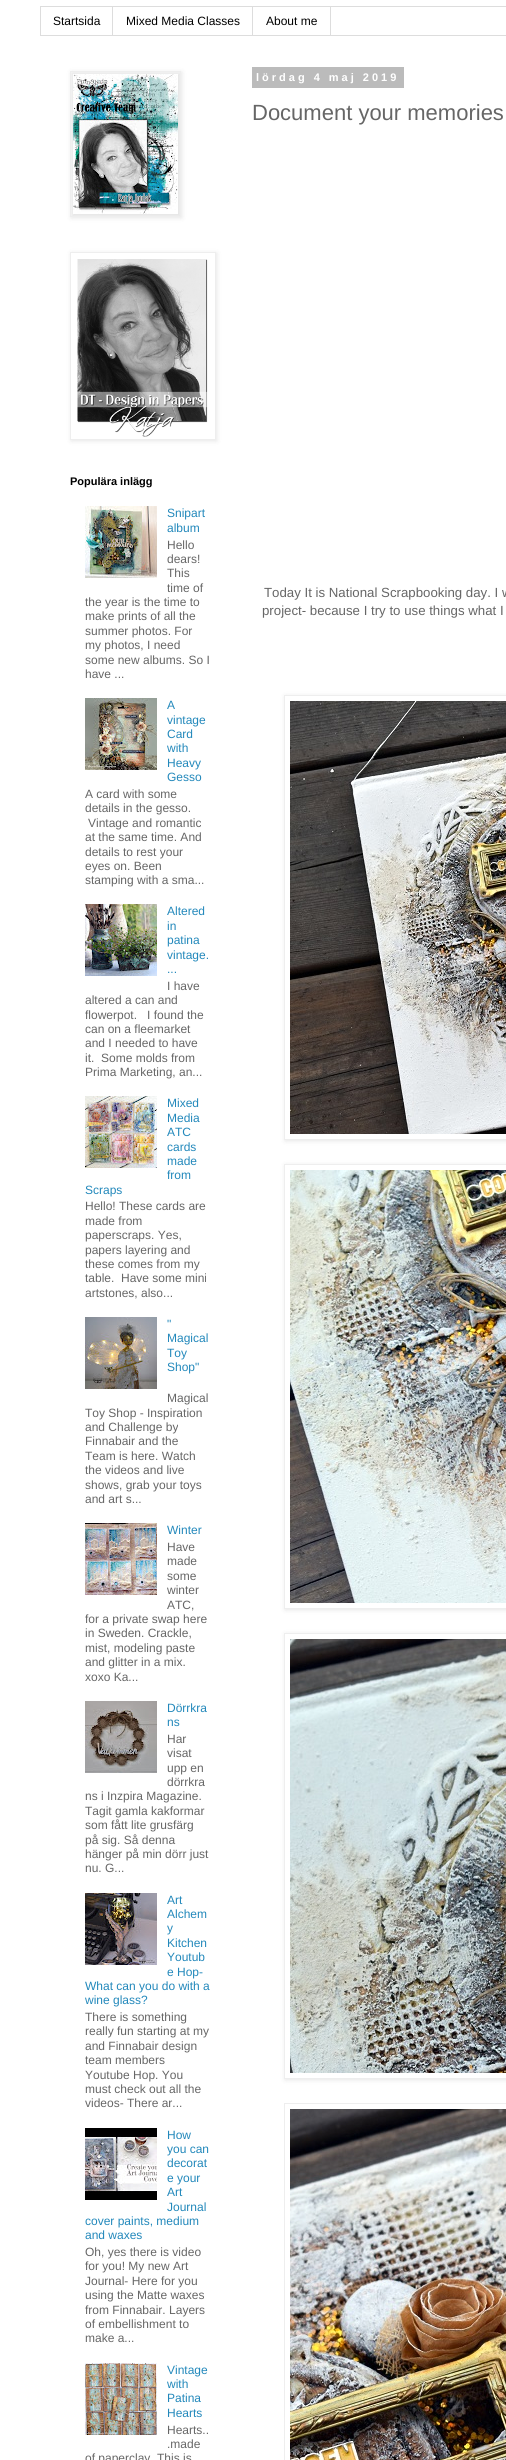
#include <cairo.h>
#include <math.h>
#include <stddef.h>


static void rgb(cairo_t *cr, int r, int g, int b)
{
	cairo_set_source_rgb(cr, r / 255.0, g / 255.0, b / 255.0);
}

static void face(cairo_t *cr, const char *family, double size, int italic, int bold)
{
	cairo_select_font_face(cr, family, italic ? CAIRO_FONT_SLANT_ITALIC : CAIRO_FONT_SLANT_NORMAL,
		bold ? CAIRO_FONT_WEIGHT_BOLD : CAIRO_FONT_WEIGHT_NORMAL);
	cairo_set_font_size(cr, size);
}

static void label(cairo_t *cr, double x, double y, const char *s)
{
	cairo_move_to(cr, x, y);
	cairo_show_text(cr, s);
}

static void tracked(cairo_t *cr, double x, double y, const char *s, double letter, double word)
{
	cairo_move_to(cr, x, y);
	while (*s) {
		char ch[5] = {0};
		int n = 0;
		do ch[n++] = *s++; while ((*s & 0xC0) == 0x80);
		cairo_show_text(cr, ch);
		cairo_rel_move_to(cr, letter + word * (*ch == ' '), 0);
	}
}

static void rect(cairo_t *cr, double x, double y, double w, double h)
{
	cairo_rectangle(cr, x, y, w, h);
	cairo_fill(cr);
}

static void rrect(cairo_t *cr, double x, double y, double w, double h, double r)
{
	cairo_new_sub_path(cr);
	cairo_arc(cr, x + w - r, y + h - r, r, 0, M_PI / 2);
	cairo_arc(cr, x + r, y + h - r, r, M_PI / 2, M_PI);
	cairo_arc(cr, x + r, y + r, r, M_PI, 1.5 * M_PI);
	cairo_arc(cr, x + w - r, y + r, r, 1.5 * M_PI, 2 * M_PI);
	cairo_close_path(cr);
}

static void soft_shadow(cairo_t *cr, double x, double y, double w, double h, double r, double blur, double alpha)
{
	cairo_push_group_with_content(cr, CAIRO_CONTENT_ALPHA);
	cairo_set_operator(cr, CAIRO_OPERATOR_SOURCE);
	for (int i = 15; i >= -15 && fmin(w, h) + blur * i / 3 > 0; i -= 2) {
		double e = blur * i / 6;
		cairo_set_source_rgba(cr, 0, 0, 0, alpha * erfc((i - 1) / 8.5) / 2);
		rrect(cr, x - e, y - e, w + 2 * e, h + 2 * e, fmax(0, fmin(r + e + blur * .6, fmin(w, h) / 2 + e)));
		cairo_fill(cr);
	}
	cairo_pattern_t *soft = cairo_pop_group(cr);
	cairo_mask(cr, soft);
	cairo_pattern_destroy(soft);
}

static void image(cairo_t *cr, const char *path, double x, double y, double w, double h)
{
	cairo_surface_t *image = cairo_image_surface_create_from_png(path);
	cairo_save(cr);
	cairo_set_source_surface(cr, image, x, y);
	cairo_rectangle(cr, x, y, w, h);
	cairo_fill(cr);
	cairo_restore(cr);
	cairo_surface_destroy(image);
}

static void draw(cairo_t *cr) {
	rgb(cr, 255, 255, 255);
	cairo_paint(cr);
	cairo_rectangle(cr, 40.5, 6.5, 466, 29);
	rgb(cr, 221, 221, 221);
	cairo_set_line_width(cr, 1);
	cairo_stroke(cr);
	rect(cr, 112, 7, 1, 28);
	face(cr, "Liberation Sans", 12, 0, 0);
	rgb(cr, 0, 0, 0);
	label(cr, 53, 25, "Startsida");
	rgb(cr, 221, 221, 221);
	rect(cr, 252, 7, 1, 28);
	rgb(cr, 0, 0, 0);
	label(cr, 126, 25, "Mixed Media Classes");
	rgb(cr, 221, 221, 221);
	rect(cr, 330, 7, 1, 28);
	rgb(cr, 0, 0, 0);
	label(cr, 266, 25, "About me");
	rgb(cr, 187, 187, 187);
	rect(cr, 252, 67, 152, 21);
	face(cr, "Liberation Sans", 11, 0, 1);
	rgb(cr, 255, 255, 255);
	tracked(cr, 256, 81, "lördag 4 maj 2019", 3, 0);
	face(cr, "Liberation Sans", 22, 0, 0);
	rgb(cr, 102, 102, 102);
	label(cr, 252, 120, "Document your memories");
	face(cr, "Liberation Sans", 13.25, 0, 0);
	label(cr, 264, 597, "Today It is National Scrapbooking day. I w");
	label(cr, 262, 615, "project- because I try to use things what I");
	cairo_save(cr);
	cairo_set_fill_rule(cr, CAIRO_FILL_RULE_EVEN_ODD);
	cairo_new_path(cr);
	cairo_move_to(cr, 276, 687);
	cairo_line_to(cr, 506, 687);
	cairo_line_to(cr, 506, 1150);
	cairo_line_to(cr, 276, 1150);
	cairo_close_path(cr);
	cairo_move_to(cr, 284, 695);
	cairo_line_to(cr, 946, 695);
	cairo_line_to(cr, 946, 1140);
	cairo_line_to(cr, 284, 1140);
	cairo_close_path(cr);
	cairo_clip(cr);
	rgb(cr, 0, 0, 0);
	soft_shadow(cr, 285, 696, 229, 445, 0, 2.5, 0.1);
	cairo_restore(cr);
	cairo_rectangle(cr, 284.5, 695.5, 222, 444);
	rgb(cr, 238, 238, 238);
	cairo_stroke(cr);
	image(cr, "image0.png", 290, 701, 216, 433);
	cairo_save(cr);
	cairo_set_fill_rule(cr, CAIRO_FILL_RULE_EVEN_ODD);
	cairo_new_path(cr);
	cairo_move_to(cr, 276, 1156);
	cairo_line_to(cr, 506, 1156);
	cairo_line_to(cr, 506, 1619);
	cairo_line_to(cr, 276, 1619);
	cairo_close_path(cr);
	cairo_move_to(cr, 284, 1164);
	cairo_line_to(cr, 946, 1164);
	cairo_line_to(cr, 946, 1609);
	cairo_line_to(cr, 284, 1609);
	cairo_close_path(cr);
	cairo_clip(cr);
	rgb(cr, 0, 0, 0);
	soft_shadow(cr, 285, 1165, 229, 445, 0, 2.5, 0.1);
	cairo_restore(cr);
	cairo_rectangle(cr, 284.5, 1164.5, 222, 444);
	cairo_stroke(cr);
	image(cr, "image1.png", 290, 1170, 216, 433);
	cairo_save(cr);
	cairo_set_fill_rule(cr, CAIRO_FILL_RULE_EVEN_ODD);
	cairo_new_path(cr);
	cairo_move_to(cr, 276, 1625);
	cairo_line_to(cr, 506, 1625);
	cairo_line_to(cr, 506, 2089);
	cairo_line_to(cr, 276, 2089);
	cairo_close_path(cr);
	cairo_move_to(cr, 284, 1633);
	cairo_line_to(cr, 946, 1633);
	cairo_line_to(cr, 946, 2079);
	cairo_line_to(cr, 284, 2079);
	cairo_close_path(cr);
	cairo_clip(cr);
	rgb(cr, 0, 0, 0);
	soft_shadow(cr, 285, 1634, 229, 446, 0, 2.5, 0.1);
	cairo_restore(cr);
	cairo_rectangle(cr, 284.5, 1633.5, 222, 445);
	cairo_stroke(cr);
	image(cr, "image2.png", 290, 1639, 216, 434);
	cairo_rectangle(cr, 284.5, 2103.5, 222, 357);
	cairo_stroke(cr);
	image(cr, "image3.png", 290, 2109, 216, 351);
	rgb(cr, 0, 0, 0);
	soft_shadow(cr, 71, 72, 111, 146, 0, 2.5, 0.1);
	cairo_rectangle(cr, 70.5, 71.5, 110, 145);
	rgb(cr, 238, 238, 238);
	cairo_stroke(cr);
	image(cr, "image4.png", 73, 74, 105, 140);
	cairo_save(cr);
	cairo_set_fill_rule(cr, CAIRO_FILL_RULE_EVEN_ODD);
	cairo_new_path(cr);
	cairo_move_to(cr, 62, 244);
	cairo_line_to(cr, 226, 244);
	cairo_line_to(cr, 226, 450);
	cairo_line_to(cr, 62, 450);
	cairo_close_path(cr);
	cairo_move_to(cr, 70, 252);
	cairo_line_to(cr, 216, 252);
	cairo_line_to(cr, 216, 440);
	cairo_line_to(cr, 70, 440);
	cairo_close_path(cr);
	cairo_clip(cr);
	rgb(cr, 0, 0, 0);
	soft_shadow(cr, 71, 253, 146, 188, 0, 2.5, 0.1);
	cairo_restore(cr);
	cairo_rectangle(cr, 70.5, 252.5, 145, 187);
	cairo_stroke(cr);
	image(cr, "image5.png", 77, 259, 131, 178);
	face(cr, "Liberation Sans", 11, 0, 1);
	rgb(cr, 0, 0, 0);
	label(cr, 70, 485, "Populära inlägg");
	image(cr, "image6.png", 85, 506, 72, 72);
	face(cr, "Liberation Sans", 12, 0, 0);
	rgb(cr, 34, 136, 187);
	label(cr, 167, 517, "Snipart");
	label(cr, 167, 532, "album");
	rgb(cr, 102, 102, 102);
	label(cr, 167, 549, "Hello");
	label(cr, 167, 563, "dears!");
	label(cr, 167, 577, "This");
	label(cr, 167, 592, "time of");
	label(cr, 85, 606, "the year is the time to");
	label(cr, 85, 620, "make prints of all the");
	label(cr, 85, 635, "summer photos. For");
	label(cr, 85, 649, "my photos, I need");
	label(cr, 85, 664, "some new albums. So I");
	label(cr, 85, 678, "have ...");
	image(cr, "image7.png", 85, 698, 72, 72);
	rgb(cr, 34, 136, 187);
	label(cr, 167, 709, "A");
	label(cr, 167, 724, "vintage");
	label(cr, 167, 738, "Card");
	label(cr, 167, 752, "with");
	label(cr, 167, 767, "Heavy");
	label(cr, 167, 781, "Gesso");
	rgb(cr, 102, 102, 102);
	label(cr, 85, 798, "A card with some");
	label(cr, 85, 812, "details in the gesso.");
	label(cr, 88, 827, "Vintage and romantic");
	label(cr, 85, 841, "at the same time. And");
	label(cr, 85, 856, "details to rest your");
	label(cr, 85, 870, "eyes on. Been");
	label(cr, 85, 884, "stamping with a sma...");
	image(cr, "image8.png", 85, 904, 72, 72);
	rgb(cr, 34, 136, 187);
	label(cr, 167, 915, "Altered");
	label(cr, 167, 930, "in");
	label(cr, 167, 944, "patina");
	label(cr, 167, 959, "vintage.");
	label(cr, 167, 973, "...");
	rgb(cr, 102, 102, 102);
	label(cr, 167, 990, "I have");
	label(cr, 85, 1004, "altered a can and");
	label(cr, 85, 1019, "flowerpot.");
	label(cr, 147, 1019, "I found the");
	label(cr, 85, 1033, "can on a fleemarket");
	label(cr, 85, 1047, "and I needed to have");
	label(cr, 85, 1062, "it.");
	label(cr, 101, 1062, "Some molds from");
	label(cr, 85, 1076, "Prima Marketing, an...");
	image(cr, "image9.png", 85, 1096, 72, 72);
	rgb(cr, 34, 136, 187);
	label(cr, 167, 1107, "Mixed");
	label(cr, 167, 1122, "Media");
	label(cr, 167, 1136, "ATC");
	label(cr, 167, 1151, "cards");
	label(cr, 167, 1165, "made");
	label(cr, 167, 1179, "from");
	label(cr, 85, 1194, "Scraps");
	rgb(cr, 102, 102, 102);
	label(cr, 85, 1210, "Hello! These cards are");
	label(cr, 85, 1225, "made from");
	label(cr, 85, 1239, "paperscraps. Yes,");
	label(cr, 85, 1254, "papers layering and");
	label(cr, 85, 1268, "these comes from my");
	label(cr, 85, 1282, "table.");
	label(cr, 121, 1282, "Have some mini");
	label(cr, 85, 1297, "artstones, also...");
	image(cr, "image10.png", 85, 1317, 72, 72);
	rgb(cr, 34, 136, 187);
	label(cr, 167, 1328, "\"");
	label(cr, 167, 1342, "Magical");
	label(cr, 167, 1357, "Toy");
	label(cr, 167, 1371, "Shop\"");
	rgb(cr, 102, 102, 102);
	label(cr, 167, 1402, "Magical");
	label(cr, 85, 1417, "Toy Shop - Inspiration");
	label(cr, 85, 1431, "and Challenge by");
	label(cr, 85, 1445, "Finnabair and the");
	label(cr, 85, 1460, "Team is here. Watch");
	label(cr, 85, 1474, "the videos and live");
	label(cr, 85, 1489, "shows, grab your toys");
	label(cr, 85, 1503, "and art s...");
	image(cr, "image11.png", 85, 1523, 72, 72);
	rgb(cr, 34, 136, 187);
	label(cr, 167, 1534, "Winter");
	rgb(cr, 102, 102, 102);
	label(cr, 167, 1551, "Have");
	label(cr, 167, 1565, "made");
	label(cr, 167, 1580, "some");
	label(cr, 167, 1594, "winter");
	label(cr, 167, 1609, "ATC,");
	label(cr, 85, 1623, "for a private swap here");
	label(cr, 85, 1637, "in Sweden. Crackle,");
	label(cr, 85, 1652, "mist, modeling paste");
	label(cr, 85, 1666, "and glitter in a mix.");
	label(cr, 85, 1681, "xoxo Ka...");
	image(cr, "image12.png", 85, 1701, 72, 72);
	rgb(cr, 34, 136, 187);
	label(cr, 167, 1712, "Dörrkra");
	label(cr, 167, 1726, "ns");
	rgb(cr, 102, 102, 102);
	label(cr, 167, 1743, "Har");
	label(cr, 167, 1757, "visat");
	label(cr, 167, 1772, "upp en");
	label(cr, 167, 1786, "dörrkra");
	label(cr, 85, 1800, "ns i Inzpira Magazine.");
	label(cr, 85, 1815, "Tagit gamla kakformar");
	label(cr, 85, 1829, "som fått lite grusfärg");
	label(cr, 85, 1844, "på sig. Så denna");
	label(cr, 85, 1858, "hänger på min dörr just");
	label(cr, 85, 1872, "nu. G...");
	image(cr, "image13.png", 85, 1893, 72, 72);
	rgb(cr, 34, 136, 187);
	label(cr, 167, 1904, "Art");
	label(cr, 167, 1918, "Alchem");
	label(cr, 167, 1932, "y");
	label(cr, 167, 1947, "Kitchen");
	label(cr, 167, 1961, "Youtub");
	label(cr, 167, 1976, "e Hop-");
	label(cr, 85, 1990, "What can you do with a");
	label(cr, 85, 2004, "wine glass?");
	rgb(cr, 102, 102, 102);
	label(cr, 85, 2021, "There is something");
	label(cr, 85, 2035, "really fun starting at my");
	label(cr, 85, 2050, "and Finnabair design");
	label(cr, 85, 2064, "team members");
	label(cr, 85, 2079, "Youtube Hop. You");
	label(cr, 85, 2093, "must check out all the");
	label(cr, 85, 2107, "videos- There ar...");
	image(cr, "image14.png", 85, 2128, 72, 72);
	rgb(cr, 34, 136, 187);
	label(cr, 167, 2139, "How");
	label(cr, 167, 2153, "you can");
	label(cr, 167, 2167, "decorat");
	label(cr, 167, 2182, "e your");
	label(cr, 167, 2196, "Art");
	label(cr, 167, 2211, "Journal");
	label(cr, 85, 2225, "cover paints, medium");
	label(cr, 85, 2239, "and waxes");
	rgb(cr, 102, 102, 102);
	label(cr, 85, 2256, "Oh, yes there is video");
	label(cr, 85, 2270, "for you! My new Art");
	label(cr, 85, 2285, "Journal- Here for you");
	label(cr, 85, 2299, "using the Matte waxes");
	label(cr, 85, 2314, "from Finnabair. Layers");
	label(cr, 85, 2328, "of embellishment to");
	label(cr, 85, 2342, "make a...");
	image(cr, "image15.png", 85, 2363, 72, 72);
	rgb(cr, 34, 136, 187);
	label(cr, 167, 2374, "Vintage");
	label(cr, 167, 2388, "with");
	label(cr, 167, 2402, "Patina");
	label(cr, 167, 2417, "Hearts");
	rgb(cr, 102, 102, 102);
	label(cr, 167, 2434, "Hearts..");
	label(cr, 167, 2448, ".made");
	label(cr, 85, 2462, "of paperclay. This is");
}

int main(void) {
	cairo_surface_t *surface = cairo_image_surface_create(CAIRO_FORMAT_RGB24, 506, 2460);
	cairo_t *cr = cairo_create(surface);
	cairo_font_options_t *options = cairo_font_options_create();
	cairo_font_options_set_hint_metrics(options, CAIRO_HINT_METRICS_OFF);
	cairo_font_options_set_hint_style(options, CAIRO_HINT_STYLE_NONE);
	cairo_set_font_options(cr, options);
	cairo_set_miter_limit(cr, 4);
	draw(cr);
	cairo_surface_write_to_png(surface, "render.png");
	cairo_font_options_destroy(options);
	cairo_destroy(cr);
	cairo_surface_destroy(surface);
	return 0;
}
